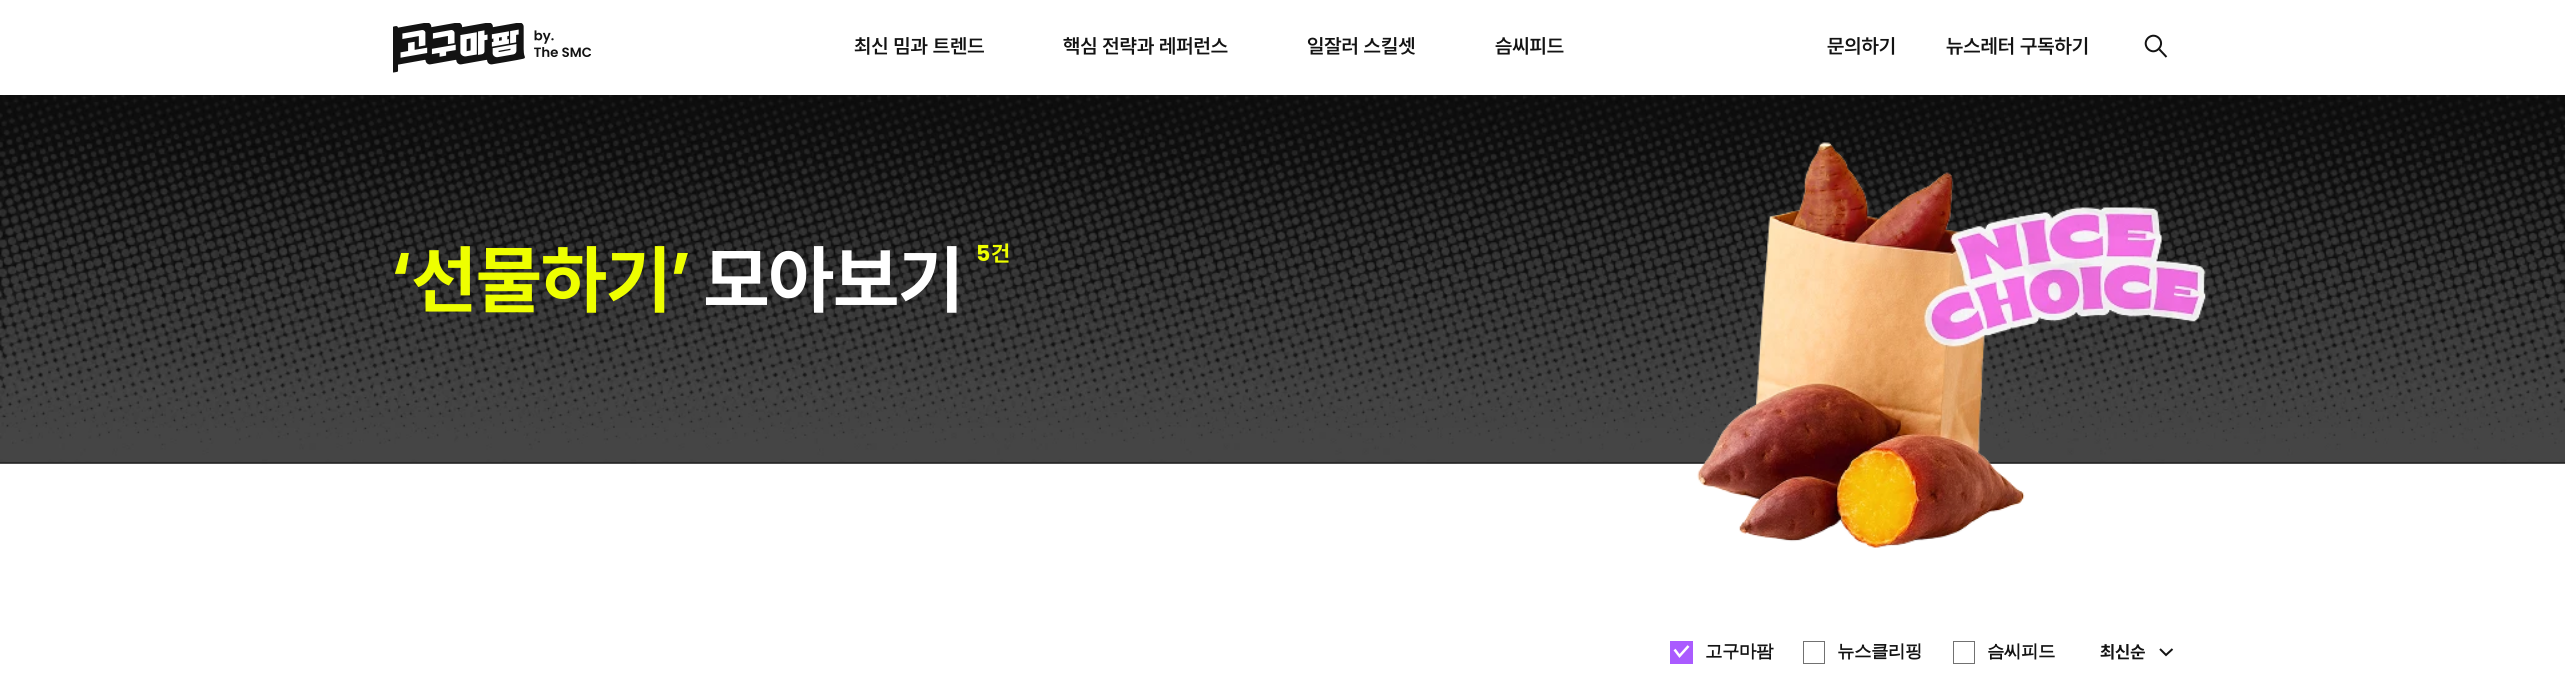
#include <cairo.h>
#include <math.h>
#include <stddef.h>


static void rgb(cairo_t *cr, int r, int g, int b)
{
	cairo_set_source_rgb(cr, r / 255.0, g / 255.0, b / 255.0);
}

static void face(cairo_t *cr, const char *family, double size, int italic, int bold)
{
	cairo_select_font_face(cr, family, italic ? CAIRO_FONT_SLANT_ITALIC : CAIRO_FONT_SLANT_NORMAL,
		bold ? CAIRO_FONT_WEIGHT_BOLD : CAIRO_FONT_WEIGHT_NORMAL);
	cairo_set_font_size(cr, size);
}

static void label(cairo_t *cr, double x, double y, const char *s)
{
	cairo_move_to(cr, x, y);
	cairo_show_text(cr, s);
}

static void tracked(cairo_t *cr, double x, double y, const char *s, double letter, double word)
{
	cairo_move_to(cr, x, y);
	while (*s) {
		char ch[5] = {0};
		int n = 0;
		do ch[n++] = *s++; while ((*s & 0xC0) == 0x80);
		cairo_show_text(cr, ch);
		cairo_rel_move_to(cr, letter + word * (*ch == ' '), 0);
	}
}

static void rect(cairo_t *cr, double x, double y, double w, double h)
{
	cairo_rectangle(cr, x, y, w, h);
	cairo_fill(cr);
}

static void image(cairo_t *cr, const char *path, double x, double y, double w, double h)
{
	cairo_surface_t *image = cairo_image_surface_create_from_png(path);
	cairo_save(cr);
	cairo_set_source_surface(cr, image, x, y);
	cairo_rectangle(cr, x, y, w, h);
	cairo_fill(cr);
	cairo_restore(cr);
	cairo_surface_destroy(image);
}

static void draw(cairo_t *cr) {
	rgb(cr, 255, 255, 255);
	cairo_paint(cr);
	image(cr, "image0.png", 393, 23, 198, 50);
	face(cr, "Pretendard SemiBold", 20, 0, 0);
	rgb(cr, 19, 19, 19);
	label(cr, 854, 53, "최신 밈과 트렌드");
	label(cr, 1063, 53, "핵심 전략과 레퍼런스");
	label(cr, 1307, 53, "일잘러 스킬셋");
	label(cr, 1495, 53, "슴씨피드");
	label(cr, 1827, 53, "문의하기");
	label(cr, 1946, 53, "뉴스레터 구독하기");
	cairo_new_path(cr);
	cairo_move_to(cr, 2148, 38);
	cairo_curve_to(cr, 2155.5, 31, 2166, 41.5, 2158.5, 49);
	cairo_curve_to(cr, 2151.5, 56, 2141, 45.5, 2148, 38);
	cairo_close_path(cr);
	cairo_move_to(cr, 2159.5, 49.5);
	cairo_line_to(cr, 2166.5, 57);
	cairo_stroke(cr);
	image(cr, "image1.png", 0, 95, 2565, 369);
	face(cr, "Pretendard", 75, 0, 1);
	rgb(cr, 238, 255, 0);
	label(cr, 392, 306, "‘선물하기’");
	rgb(cr, 255, 255, 255);
	label(cr, 704, 306, "모아보기");
	face(cr, "Poppins", 22, 0, 1);
	rgb(cr, 238, 255, 0);
	label(cr, 976, 261, "5");
	face(cr, "Pretendard", 22, 0, 1);
	label(cr, 991, 261, "건");
	image(cr, "image2.png", 1697, 142, 509, 406);
	rgb(cr, 170, 91, 255);
	rect(cr, 1670, 641, 23, 23);
	cairo_new_path(cr);
	cairo_move_to(cr, 1674.5, 649.5);
	cairo_line_to(cr, 1679.5, 656);
	cairo_line_to(cr, 1688.5, 646);
	rgb(cr, 255, 255, 255);
	cairo_set_line_width(cr, 2.5);
	cairo_stroke(cr);
	face(cr, "WenQuanYi Zen Hei", 17.5, 0, 1);
	rgb(cr, 19, 19, 19);
	tracked(cr, 1705, 657, "고구마팜", -0.5, 0);
	cairo_rectangle(cr, 1803.5, 641.5, 21, 22);
	rgb(cr, 113, 113, 113);
	cairo_set_line_width(cr, 1);
	cairo_stroke(cr);
	rgb(cr, 19, 19, 19);
	tracked(cr, 1837, 657, "뉴스클리핑", -0.5, 0);
	cairo_rectangle(cr, 1953.5, 641.5, 21, 22);
	rgb(cr, 113, 113, 113);
	cairo_stroke(cr);
	rgb(cr, 19, 19, 19);
	tracked(cr, 1987, 657, "슴씨피드", -0.5, 0);
	face(cr, "Pretendard", 17.5, 0, 1);
	label(cr, 2100, 658, "최신순");
	cairo_new_path(cr);
	cairo_move_to(cr, 2160, 649);
	cairo_line_to(cr, 2166, 655);
	cairo_line_to(cr, 2172.5, 649);
	cairo_set_line_width(cr, 2);
	cairo_stroke(cr);
}

int main(void) {
	cairo_surface_t *surface = cairo_image_surface_create(CAIRO_FORMAT_RGB24, 2565, 697);
	cairo_t *cr = cairo_create(surface);
	cairo_font_options_t *options = cairo_font_options_create();
	cairo_font_options_set_hint_metrics(options, CAIRO_HINT_METRICS_OFF);
	cairo_font_options_set_hint_style(options, CAIRO_HINT_STYLE_NONE);
	cairo_set_font_options(cr, options);
	cairo_set_miter_limit(cr, 4);
	draw(cr);
	cairo_surface_write_to_png(surface, "render.png");
	cairo_font_options_destroy(options);
	cairo_destroy(cr);
	cairo_surface_destroy(surface);
	return 0;
}
